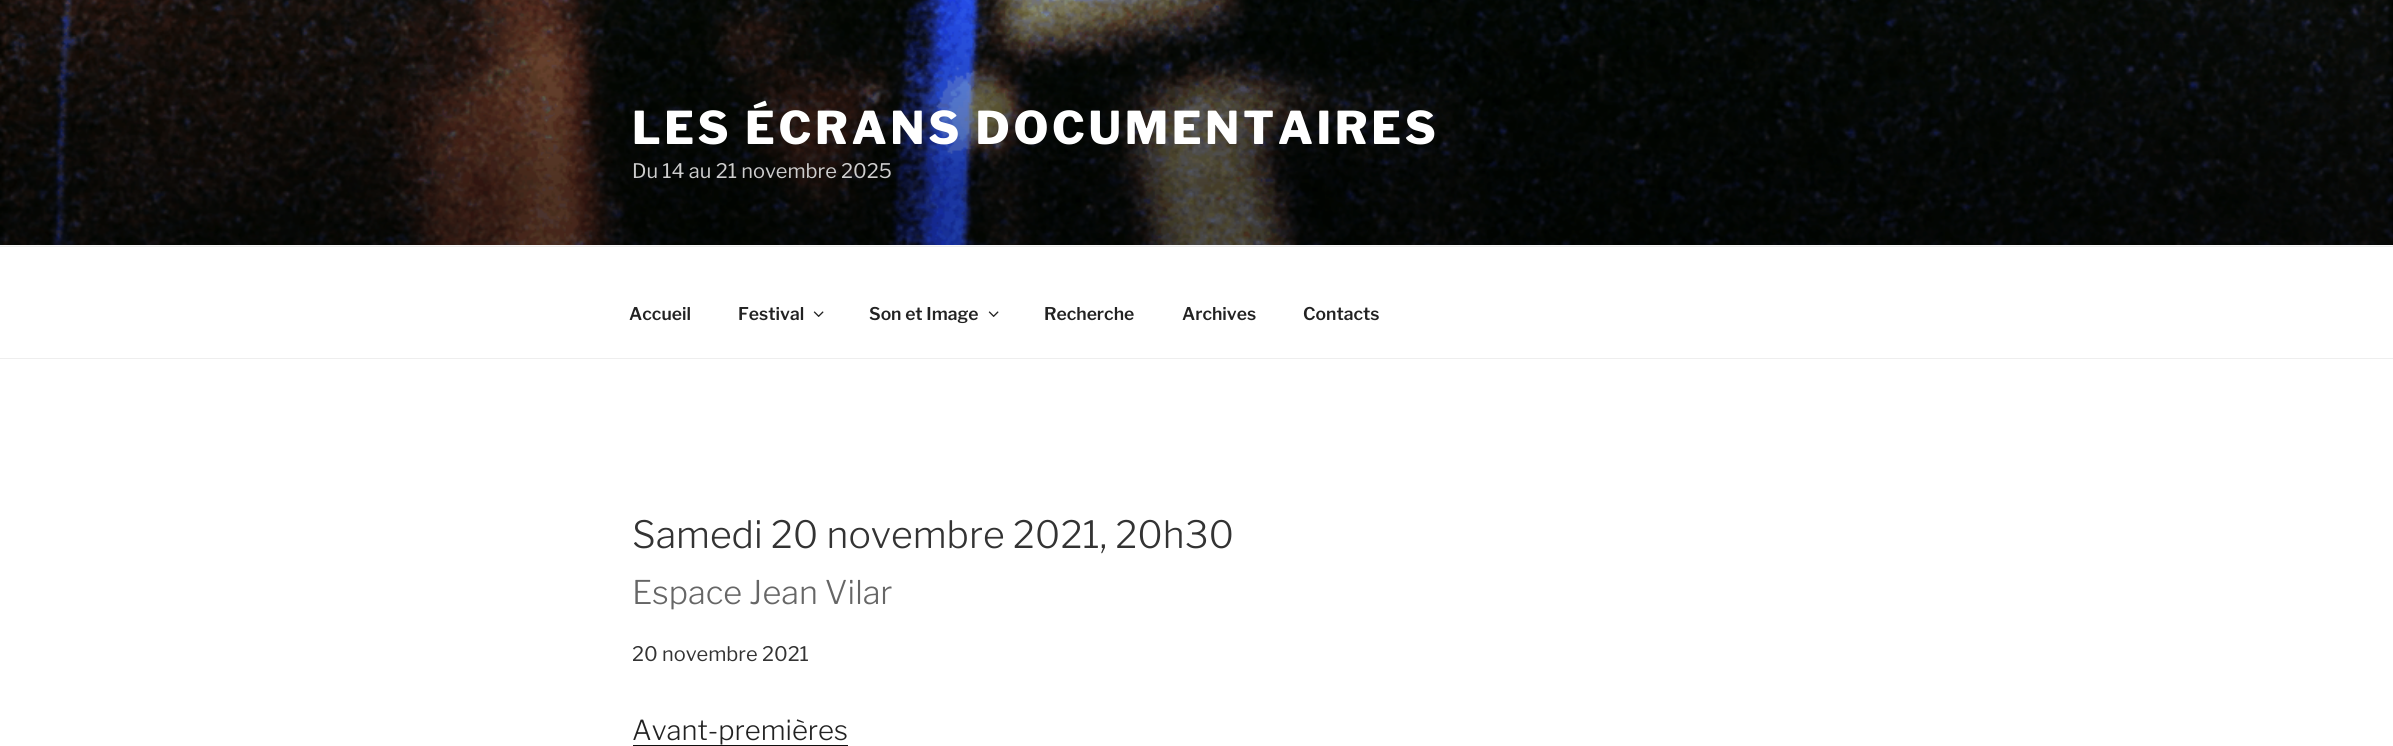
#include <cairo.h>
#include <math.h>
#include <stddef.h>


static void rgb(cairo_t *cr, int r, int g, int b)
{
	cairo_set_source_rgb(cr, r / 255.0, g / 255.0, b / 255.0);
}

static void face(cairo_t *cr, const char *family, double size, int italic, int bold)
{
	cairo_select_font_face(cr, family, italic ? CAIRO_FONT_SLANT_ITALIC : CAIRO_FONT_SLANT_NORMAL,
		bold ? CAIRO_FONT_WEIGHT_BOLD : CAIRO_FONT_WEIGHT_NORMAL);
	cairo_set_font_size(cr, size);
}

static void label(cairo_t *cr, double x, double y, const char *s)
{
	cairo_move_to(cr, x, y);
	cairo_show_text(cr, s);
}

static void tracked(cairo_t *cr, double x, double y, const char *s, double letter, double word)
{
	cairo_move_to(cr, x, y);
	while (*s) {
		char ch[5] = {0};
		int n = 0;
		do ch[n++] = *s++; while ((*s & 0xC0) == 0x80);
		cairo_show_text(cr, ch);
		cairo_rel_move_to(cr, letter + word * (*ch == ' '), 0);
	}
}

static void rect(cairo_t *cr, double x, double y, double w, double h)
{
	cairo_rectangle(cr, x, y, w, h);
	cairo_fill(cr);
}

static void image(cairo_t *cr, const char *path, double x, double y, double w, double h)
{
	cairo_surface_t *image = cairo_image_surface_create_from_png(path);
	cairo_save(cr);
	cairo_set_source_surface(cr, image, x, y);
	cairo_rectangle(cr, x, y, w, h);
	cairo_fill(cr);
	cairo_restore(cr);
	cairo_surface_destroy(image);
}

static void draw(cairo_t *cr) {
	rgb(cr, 255, 255, 255);
	cairo_paint(cr);
	rgb(cr, 250, 250, 250);
	rect(cr, 0, 245, 2393, 1);
	image(cr, "image0.png", 0, 0, 2393, 245);
	face(cr, "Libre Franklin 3 Thin", 45, 0, 0);
	rgb(cr, 255, 255, 255);
	tracked(cr, 632, 144, "LES ÉCRANS DOCUMENTAIRES", 3.6, 0);
	face(cr, "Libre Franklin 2 Thin", 20, 0, 0);
	rgb(cr, 206, 206, 206);
	label(cr, 632, 178, "Du 14 au 21 novembre 2025");
	rgb(cr, 238, 238, 238);
	rect(cr, 0, 246, 2393, 1);
	rect(cr, 0, 358, 2393, 1);
	face(cr, "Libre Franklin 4 Thin", 17.5, 0, 0);
	rgb(cr, 34, 34, 34);
	label(cr, 629, 320, "Accueil");
	label(cr, 738, 320, "Festival");
	image(cr, "image1.png", 813, 311, 11, 6);
	label(cr, 869, 320, "Son et Image");
	image(cr, "image1.png", 988, 311, 11, 6);
	label(cr, 1044, 320, "Recherche");
	label(cr, 1182, 320, "Archives");
	label(cr, 1303, 320, "Contacts");
	face(cr, "Libre Franklin Thin", 37.5, 0, 0);
	rgb(cr, 51, 51, 51);
	label(cr, 632, 548, "Samedi 20 novembre 2021, 20h30");
	face(cr, "Libre Franklin Thin", 32.5, 0, 0);
	rgb(cr, 102, 102, 102);
	label(cr, 632, 604, "Espace Jean Vilar");
	face(cr, "Libre Franklin 2 Thin", 20, 0, 0);
	rgb(cr, 51, 51, 51);
	label(cr, 632, 661, "20 novembre 2021");
	face(cr, "Libre Franklin Thin", 27.5, 0, 0);
	rgb(cr, 34, 34, 34);
	label(cr, 632, 740, "Avant-premières");
	rgb(cr, 15, 15, 15);
	rect(cr, 633, 745, 215, 1);
}

int main(void) {
	cairo_surface_t *surface = cairo_image_surface_create(CAIRO_FORMAT_RGB24, 2393, 746);
	cairo_t *cr = cairo_create(surface);
	cairo_font_options_t *options = cairo_font_options_create();
	cairo_font_options_set_hint_metrics(options, CAIRO_HINT_METRICS_OFF);
	cairo_font_options_set_hint_style(options, CAIRO_HINT_STYLE_NONE);
	cairo_set_font_options(cr, options);
	cairo_set_miter_limit(cr, 4);
	draw(cr);
	cairo_surface_write_to_png(surface, "render.png");
	cairo_font_options_destroy(options);
	cairo_destroy(cr);
	cairo_surface_destroy(surface);
	return 0;
}
